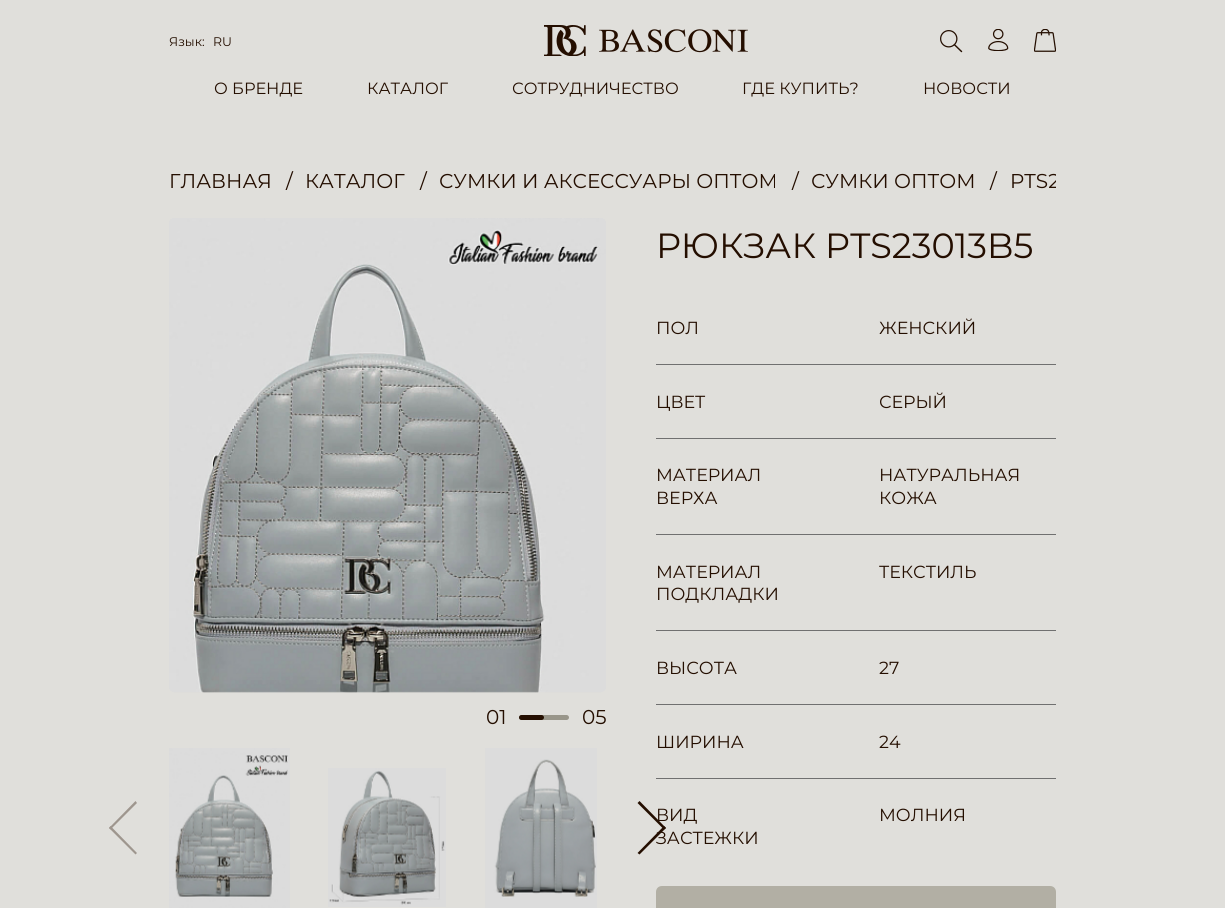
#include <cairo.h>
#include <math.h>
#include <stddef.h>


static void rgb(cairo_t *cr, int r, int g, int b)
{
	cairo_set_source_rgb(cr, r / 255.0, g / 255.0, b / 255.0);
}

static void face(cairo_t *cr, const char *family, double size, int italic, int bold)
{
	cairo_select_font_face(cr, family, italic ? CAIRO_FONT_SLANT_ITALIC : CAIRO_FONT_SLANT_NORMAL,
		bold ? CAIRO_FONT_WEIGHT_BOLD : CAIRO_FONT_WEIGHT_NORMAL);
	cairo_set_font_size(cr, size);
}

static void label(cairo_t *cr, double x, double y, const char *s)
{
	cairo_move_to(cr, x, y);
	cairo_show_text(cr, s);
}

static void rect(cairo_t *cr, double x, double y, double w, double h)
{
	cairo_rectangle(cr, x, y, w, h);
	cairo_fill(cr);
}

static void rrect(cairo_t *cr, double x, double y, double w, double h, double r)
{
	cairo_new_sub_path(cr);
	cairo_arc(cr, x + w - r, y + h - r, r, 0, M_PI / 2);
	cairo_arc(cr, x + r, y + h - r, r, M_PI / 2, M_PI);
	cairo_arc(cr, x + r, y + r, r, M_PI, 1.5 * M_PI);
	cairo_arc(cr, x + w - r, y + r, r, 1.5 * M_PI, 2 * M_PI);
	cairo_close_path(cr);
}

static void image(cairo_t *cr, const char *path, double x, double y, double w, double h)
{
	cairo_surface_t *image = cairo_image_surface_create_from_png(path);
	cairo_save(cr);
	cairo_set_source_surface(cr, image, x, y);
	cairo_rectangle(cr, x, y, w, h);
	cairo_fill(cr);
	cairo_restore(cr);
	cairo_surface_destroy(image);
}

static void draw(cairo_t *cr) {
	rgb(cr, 224, 223, 219);
	cairo_paint(cr);
	face(cr, "Montserrat", 12.5, 0, 0);
	rgb(cr, 36, 14, 0);
	label(cr, 169, 46, "Язык:");
	label(cr, 213, 46, "RU");
	image(cr, "image0.png", 544, 25, 204, 31);
	image(cr, "image1.png", 940, 30, 23, 23);
	image(cr, "image2.png", 988, 29, 21, 22);
	image(cr, "image3.png", 1034, 29, 22, 23);
	face(cr, "Montserrat", 16.25, 0, 0);
	label(cr, 214, 94, "О БРЕНДЕ");
	label(cr, 367, 94, "КАТАЛОГ");
	label(cr, 512, 94, "СОТРУДНИЧЕСТВО");
	label(cr, 742, 94, "ГДЕ КУПИТЬ?");
	label(cr, 923, 94, "НОВОСТИ");
	face(cr, "Montserrat", 20, 0, 0);
	label(cr, 169, 188, "ГЛАВНАЯ");
	label(cr, 286, 188, "/");
	label(cr, 305, 188, "КАТАЛОГ");
	label(cr, 420, 188, "/");
	label(cr, 439, 188, "СУМКИ И АКСЕССУАРЫ ОПТОМ");
	label(cr, 792, 188, "/");
	label(cr, 811, 188, "СУМКИ ОПТОМ");
	label(cr, 990, 188, "/");
	cairo_save(cr);
	cairo_rectangle(cr, 169, 169, 887, 24);
	cairo_clip(cr);
	label(cr, 1010, 188, "PTS2");
	cairo_restore(cr);
	image(cr, "image4.png", 169, 218, 437, 475);
	label(cr, 486, 724, "01");
	rgb(cr, 153, 150, 138);
	rrect(cr, 519, 715, 50, 5, 2.5);
	cairo_fill(cr);
	rgb(cr, 36, 14, 0);
	rrect(cr, 519, 715, 25, 5, 2.5);
	cairo_fill(cr);
	label(cr, 582, 724, "05");
	rgb(cr, 158, 150, 142);
	cairo_new_path(cr);
	cairo_move_to(cr, 110.5, 829.5);
	cairo_line_to(cr, 137, 803);
	cairo_line_to(cr, 135.5, 801);
	cairo_line_to(cr, 109, 828);
	cairo_close_path(cr);
	cairo_fill(cr);
	cairo_new_path(cr);
	cairo_move_to(cr, 109, 828);
	cairo_line_to(cr, 135.5, 854.5);
	cairo_line_to(cr, 137, 853);
	cairo_line_to(cr, 110.5, 826);
	cairo_close_path(cr);
	cairo_fill(cr);
	image(cr, "image5.png", 169, 748, 121, 160);
	image(cr, "image6.png", 328, 768, 118, 139);
	image(cr, "image7.png", 485, 748, 112, 160);
	rgb(cr, 36, 14, 0);
	cairo_new_path(cr);
	cairo_move_to(cr, 666, 828);
	cairo_line_to(cr, 639.5, 801);
	cairo_line_to(cr, 637.5, 803);
	cairo_line_to(cr, 664, 829.5);
	cairo_close_path(cr);
	cairo_fill(cr);
	cairo_new_path(cr);
	cairo_move_to(cr, 664, 826);
	cairo_line_to(cr, 637.5, 853);
	cairo_line_to(cr, 639.5, 854.5);
	cairo_line_to(cr, 666, 828);
	cairo_close_path(cr);
	cairo_fill(cr);
	face(cr, "Montserrat", 35, 0, 0);
	label(cr, 656, 258, "РЮКЗАК PTS23013B5");
	rgb(cr, 112, 112, 112);
	rect(cr, 656, 364, 400, 1);
	face(cr, "Montserrat", 17.5, 0, 0);
	rgb(cr, 36, 14, 0);
	label(cr, 656, 334, "ПОЛ");
	label(cr, 879, 334, "ЖЕНСКИЙ");
	rgb(cr, 112, 112, 112);
	rect(cr, 656, 438, 400, 1);
	rgb(cr, 36, 14, 0);
	label(cr, 656, 408, "ЦВЕТ");
	label(cr, 879, 408, "СЕРЫЙ");
	rgb(cr, 112, 112, 112);
	rect(cr, 656, 534, 400, 1);
	rgb(cr, 36, 14, 0);
	label(cr, 656, 481, "МАТЕРИАЛ");
	label(cr, 656, 504, "ВЕРХА");
	label(cr, 879, 481, "НАТУРАЛЬНАЯ");
	label(cr, 879, 504, "КОЖА");
	rgb(cr, 112, 112, 112);
	rect(cr, 656, 630, 400, 1);
	rgb(cr, 36, 14, 0);
	label(cr, 656, 578, "МАТЕРИАЛ");
	label(cr, 656, 600, "ПОДКЛАДКИ");
	label(cr, 879, 578, "ТЕКСТИЛЬ");
	rgb(cr, 112, 112, 112);
	rect(cr, 656, 704, 400, 1);
	rgb(cr, 36, 14, 0);
	label(cr, 656, 674, "ВЫСОТА");
	label(cr, 879, 674, "27");
	rgb(cr, 112, 112, 112);
	rect(cr, 656, 778, 400, 1);
	rgb(cr, 36, 14, 0);
	label(cr, 656, 748, "ШИРИНА");
	label(cr, 879, 748, "24");
	label(cr, 656, 821, "ВИД");
	label(cr, 656, 844, "ЗАСТЕЖКИ");
	label(cr, 879, 821, "МОЛНИЯ");
	rgb(cr, 178, 175, 164);
	cairo_new_path(cr);
	cairo_move_to(cr, 662, 886);
	cairo_line_to(cr, 1050, 886);
	cairo_curve_to(cr, 1053.5, 886, 1056, 888.5, 1056, 892);
	cairo_line_to(cr, 1056, 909);
	cairo_line_to(cr, 656, 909);
	cairo_line_to(cr, 656, 892);
	cairo_curve_to(cr, 656, 888.5, 658.5, 886, 662, 886);
	cairo_close_path(cr);
	cairo_fill(cr);
}

int main(void) {
	cairo_surface_t *surface = cairo_image_surface_create(CAIRO_FORMAT_RGB24, 1225, 908);
	cairo_t *cr = cairo_create(surface);
	cairo_font_options_t *options = cairo_font_options_create();
	cairo_font_options_set_hint_metrics(options, CAIRO_HINT_METRICS_OFF);
	cairo_font_options_set_hint_style(options, CAIRO_HINT_STYLE_NONE);
	cairo_set_font_options(cr, options);
	cairo_set_miter_limit(cr, 4);
	draw(cr);
	cairo_surface_write_to_png(surface, "render.png");
	cairo_font_options_destroy(options);
	cairo_destroy(cr);
	cairo_surface_destroy(surface);
	return 0;
}
